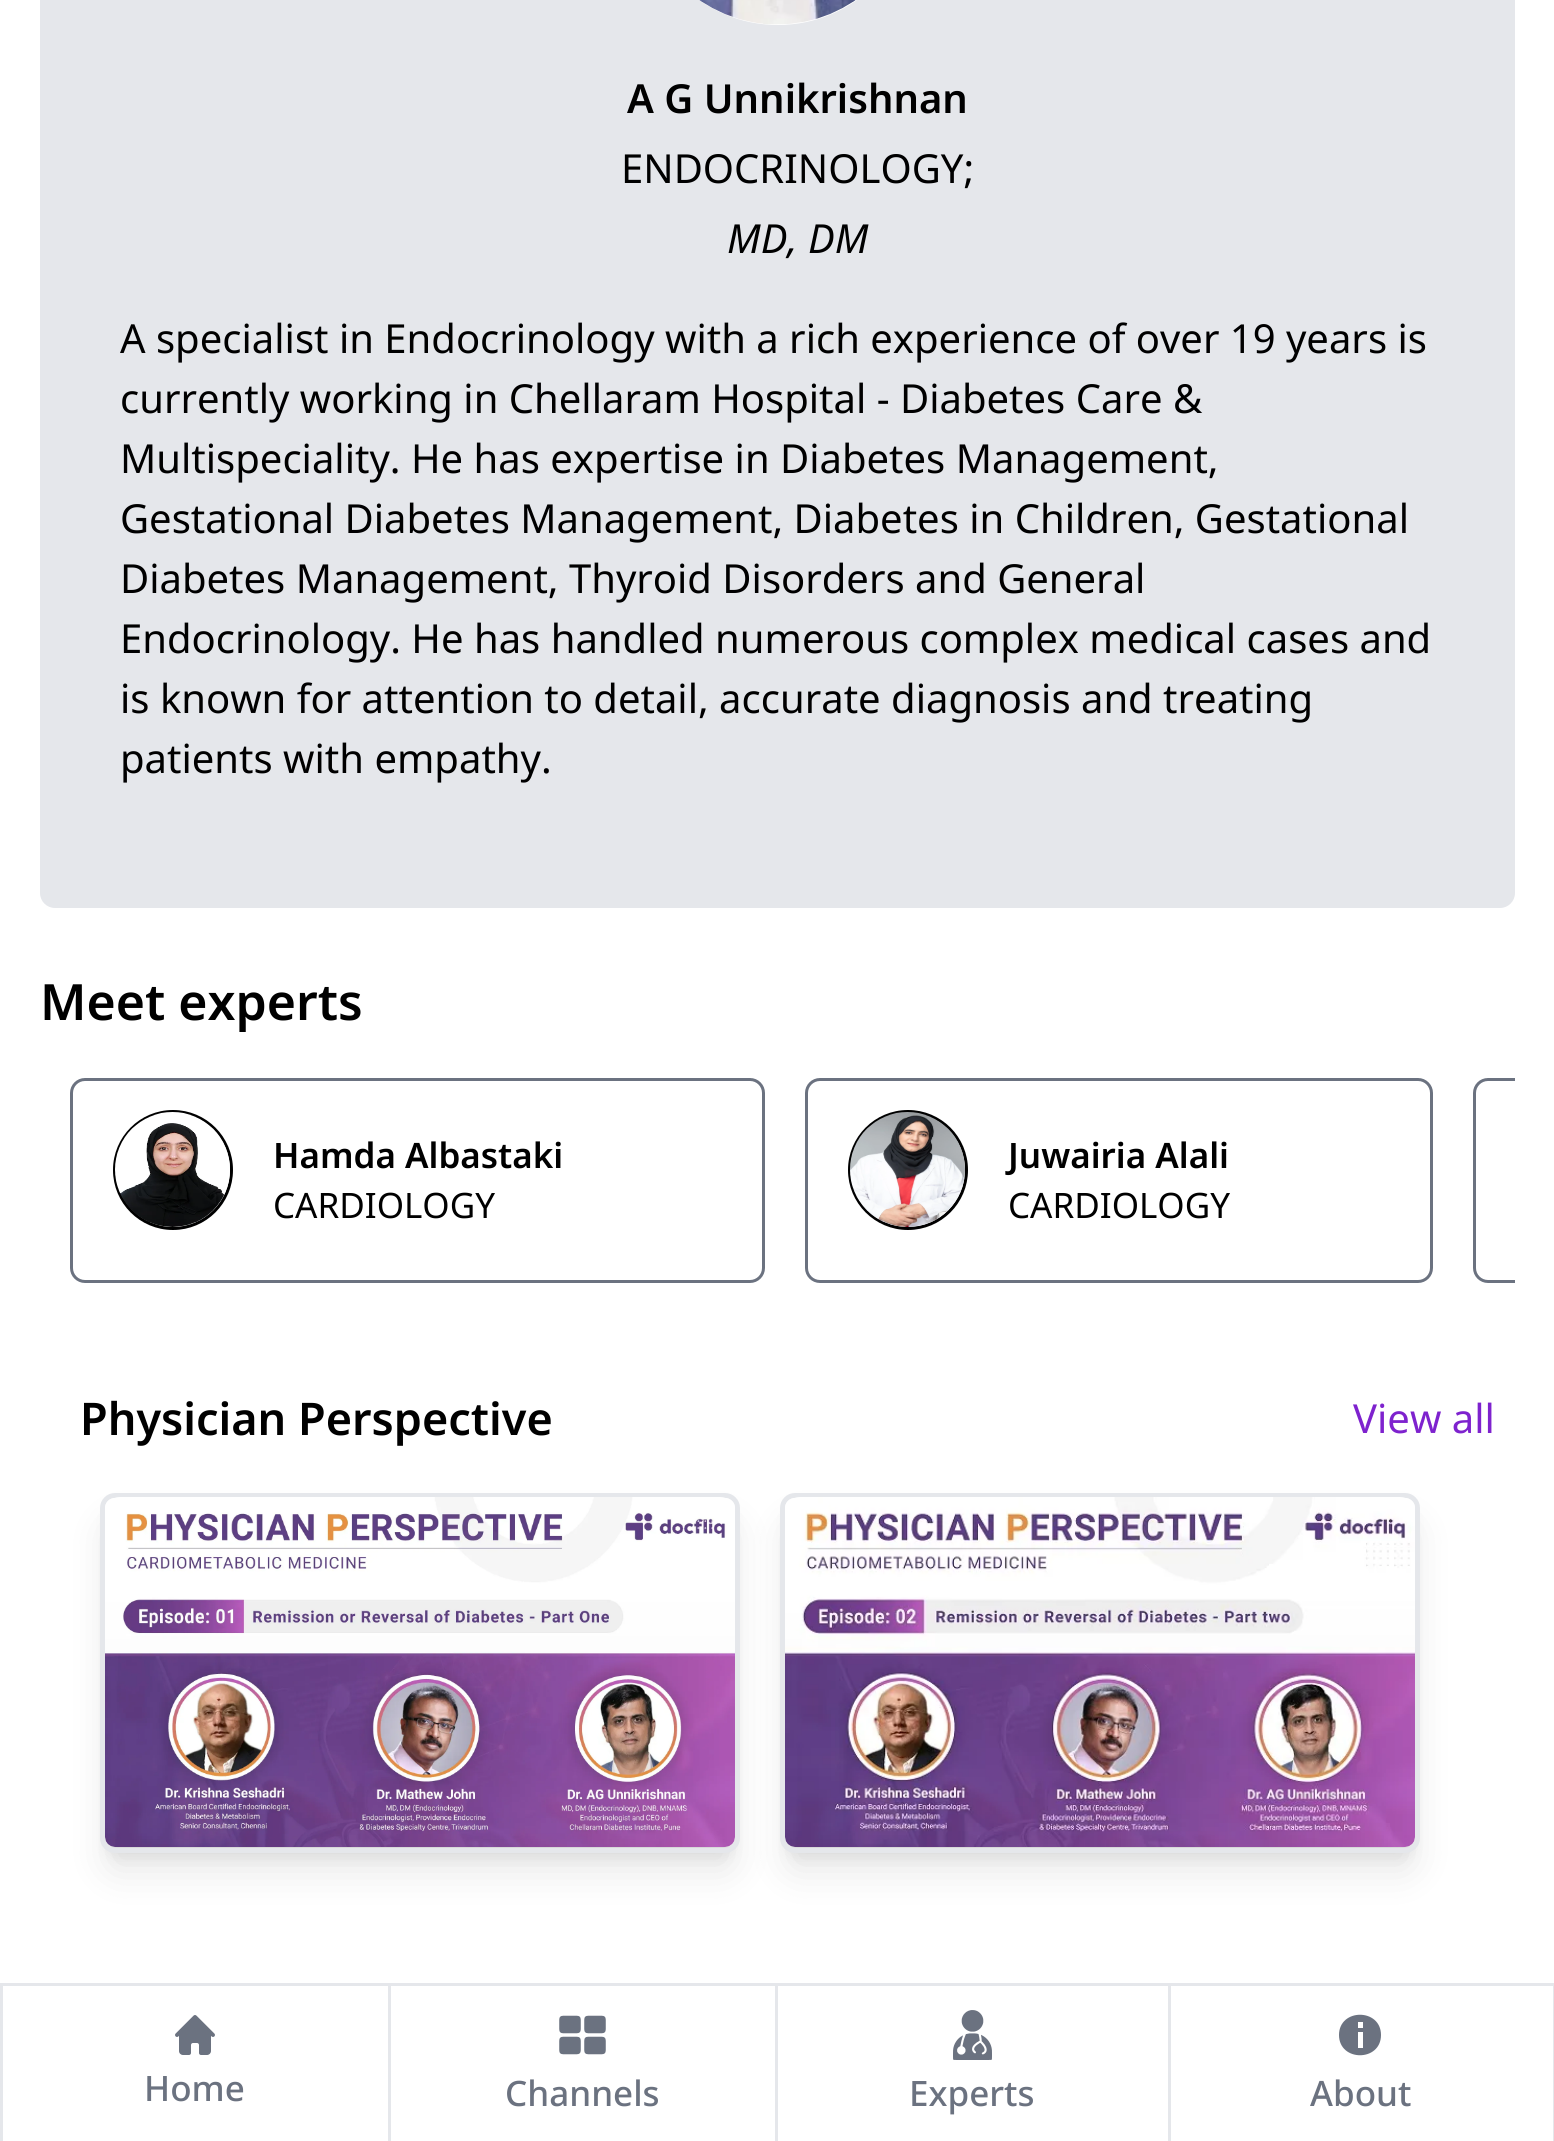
#include <cairo.h>
#include <math.h>
#include <stddef.h>


static void rgb(cairo_t *cr, int r, int g, int b)
{
	cairo_set_source_rgb(cr, r / 255.0, g / 255.0, b / 255.0);
}

static void face(cairo_t *cr, const char *family, double size, int italic, int bold)
{
	cairo_select_font_face(cr, family, italic ? CAIRO_FONT_SLANT_ITALIC : CAIRO_FONT_SLANT_NORMAL,
		bold ? CAIRO_FONT_WEIGHT_BOLD : CAIRO_FONT_WEIGHT_NORMAL);
	cairo_set_font_size(cr, size);
}

static void label(cairo_t *cr, double x, double y, const char *s)
{
	cairo_move_to(cr, x, y);
	cairo_show_text(cr, s);
}

static void rect(cairo_t *cr, double x, double y, double w, double h)
{
	cairo_rectangle(cr, x, y, w, h);
	cairo_fill(cr);
}

static void rrect(cairo_t *cr, double x, double y, double w, double h, double r)
{
	cairo_new_sub_path(cr);
	cairo_arc(cr, x + w - r, y + h - r, r, 0, M_PI / 2);
	cairo_arc(cr, x + r, y + h - r, r, M_PI / 2, M_PI);
	cairo_arc(cr, x + r, y + r, r, M_PI, 1.5 * M_PI);
	cairo_arc(cr, x + w - r, y + r, r, 1.5 * M_PI, 2 * M_PI);
	cairo_close_path(cr);
}

static void soft_shadow(cairo_t *cr, double x, double y, double w, double h, double r, double blur, double alpha)
{
	cairo_push_group_with_content(cr, CAIRO_CONTENT_ALPHA);
	cairo_set_operator(cr, CAIRO_OPERATOR_SOURCE);
	for (int i = 15; i >= -15 && fmin(w, h) + blur * i / 3 > 0; i -= 2) {
		double e = blur * i / 6;
		cairo_set_source_rgba(cr, 0, 0, 0, alpha * erfc((i - 1) / 8.5) / 2);
		rrect(cr, x - e, y - e, w + 2 * e, h + 2 * e, fmax(0, fmin(r + e + blur * .6, fmin(w, h) / 2 + e)));
		cairo_fill(cr);
	}
	cairo_pattern_t *soft = cairo_pop_group(cr);
	cairo_mask(cr, soft);
	cairo_pattern_destroy(soft);
}

static void image(cairo_t *cr, const char *path, double x, double y, double w, double h)
{
	cairo_surface_t *image = cairo_image_surface_create_from_png(path);
	cairo_save(cr);
	cairo_set_source_surface(cr, image, x, y);
	cairo_rectangle(cr, x, y, w, h);
	cairo_fill(cr);
	cairo_restore(cr);
	cairo_surface_destroy(image);
}

static void draw(cairo_t *cr) {
	rgb(cr, 255, 255, 255);
	cairo_paint(cr);
	rgb(cr, 229, 231, 235);
	rrect(cr, 40, -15, 1475, 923, 15);
	cairo_fill(cr);
	rgb(cr, 255, 255, 255);
	rrect(cr, 639.5, -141.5, 277, 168, 138.5);
	cairo_fill_preserve(cr);
	rgb(cr, 229, 231, 235);
	cairo_set_line_width(cr, 3);
	cairo_stroke(cr);
	image(cr, "image0.png", 699, 0, 157, 25);
	face(cr, "Noto Sans SemiBold", 40, 0, 0);
	rgb(cr, 0, 0, 0);
	label(cr, 627, 113, "A G Unnikrishnan");
	face(cr, "Noto Sans", 40, 0, 0);
	label(cr, 621, 183, "ENDOCRINOLOGY;");
	face(cr, "Noto Sans", 40, 1, 0);
	label(cr, 727, 253, "MD, DM");
	face(cr, "Noto Sans", 40, 0, 0);
	label(cr, 120, 353, "A specialist in Endocrinology with a rich experience of over 19 years is");
	label(cr, 120, 413, "currently working in Chellaram Hospital - Diabetes Care &");
	label(cr, 120, 473, "Multispeciality. He has expertise in Diabetes Management,");
	label(cr, 120, 533, "Gestational Diabetes Management, Diabetes in Children, Gestational");
	label(cr, 120, 593, "Diabetes Management, Thyroid Disorders and General");
	label(cr, 120, 653, "Endocrinology. He has handled numerous complex medical cases and");
	label(cr, 120, 713, "is known for attention to detail, accurate diagnosis and treating");
	label(cr, 120, 773, "patients with empathy.");
	face(cr, "Noto Sans SemiBold", 50, 0, 0);
	label(cr, 40, 1020, "Meet experts");
	rrect(cr, 71.5, 1079.5, 692, 202, 13.5);
	rgb(cr, 107, 114, 128);
	cairo_stroke(cr);
	cairo_arc(cr, 173, 1170, 58.5, 0, 2 * M_PI);
	rgb(cr, 0, 0, 0);
	cairo_stroke(cr);
	image(cr, "image1.png", 115, 1112, 115, 115);
	face(cr, "Noto Sans SemiBold", 35, 0, 0);
	label(cr, 273, 1168, "Hamda Albastaki");
	face(cr, "Noto Sans", 35, 0, 0);
	label(cr, 273, 1218, "CARDIOLOGY");
	rrect(cr, 806.5, 1079.5, 625, 202, 13.5);
	rgb(cr, 107, 114, 128);
	cairo_stroke(cr);
	cairo_arc(cr, 908, 1170, 58.5, 0, 2 * M_PI);
	rgb(cr, 0, 0, 0);
	cairo_stroke(cr);
	image(cr, "image2.png", 850, 1112, 115, 115);
	face(cr, "Noto Sans SemiBold", 35, 0, 0);
	label(cr, 1008, 1168, "Juwairia Alali");
	face(cr, "Noto Sans", 35, 0, 0);
	label(cr, 1008, 1218, "CARDIOLOGY");
	cairo_save(cr);
	cairo_rectangle(cr, 40, 1038, 1475, 285);
	cairo_clip(cr);
	rrect(cr, 1474.5, 1079.5, 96, 202, 13.5);
	rgb(cr, 107, 114, 128);
	cairo_stroke(cr);
	cairo_restore(cr);
	face(cr, "Noto Sans SemiBold", 45, 0, 0);
	label(cr, 80, 1435, "Physician Perspective");
	face(cr, "Noto Sans", 40, 0, 0);
	rgb(cr, 126, 34, 206);
	label(cr, 1353, 1433, "View all");
	rgb(cr, 0, 0, 0);
	soft_shadow(cr, 110, 1513, 620, 340, 5, 7.5, 0.1);
	soft_shadow(cr, 108, 1525, 625, 345, 8, 19, 0.1);
	rrect(cr, 102.5, 1495.5, 635, 355, 12.5);
	rgb(cr, 229, 231, 235);
	cairo_set_line_width(cr, 5);
	cairo_stroke(cr);
	rgb(cr, 255, 255, 255);
	cairo_new_path(cr);
	cairo_move_to(cr, 115, 1498);
	cairo_line_to(cr, 725, 1498);
	cairo_curve_to(cr, 730.5, 1498, 735, 1502.5, 735, 1508);
	cairo_line_to(cr, 735, 1833);
	cairo_line_to(cr, 105, 1833);
	cairo_line_to(cr, 105, 1508);
	cairo_curve_to(cr, 105, 1502.5, 109.5, 1498, 115, 1498);
	cairo_close_path(cr);
	cairo_fill(cr);
	image(cr, "image3.png", 105, 1497, 630, 350);
	rgb(cr, 0, 0, 0);
	soft_shadow(cr, 790, 1513, 620, 340, 5, 7.5, 0.1);
	soft_shadow(cr, 788, 1525, 625, 345, 8, 19, 0.1);
	rrect(cr, 782.5, 1495.5, 635, 355, 12.5);
	rgb(cr, 229, 231, 235);
	cairo_stroke(cr);
	rgb(cr, 255, 255, 255);
	cairo_new_path(cr);
	cairo_move_to(cr, 795, 1498);
	cairo_line_to(cr, 1405, 1498);
	cairo_curve_to(cr, 1410.5, 1498, 1415, 1502.5, 1415, 1508);
	cairo_line_to(cr, 1415, 1833);
	cairo_line_to(cr, 785, 1833);
	cairo_line_to(cr, 785, 1508);
	cairo_curve_to(cr, 785, 1502.5, 789.5, 1498, 795, 1498);
	cairo_close_path(cr);
	cairo_fill(cr);
	image(cr, "image4.png", 785, 1497, 630, 350);
	rgb(cr, 229, 231, 235);
	rect(cr, 0, 1983, 1554, 3);
	rect(cr, 388, 1985, 3, 156);
	rect(cr, 0, 1985, 3, 156);
	image(cr, "image5.png", 175, 2015, 40, 40);
	face(cr, "Noto Sans Medium", 35, 0, 0);
	rgb(cr, 107, 114, 128);
	label(cr, 144, 2101, "Home");
	rgb(cr, 229, 231, 235);
	rect(cr, 775, 1985, 3, 156);
	image(cr, "image6.png", 559, 2015, 47, 40);
	rgb(cr, 107, 114, 128);
	label(cr, 505, 2106, "Channels");
	image(cr, "image7.png", 953, 2010, 39, 50);
	label(cr, 909, 2106, "Experts");
	rgb(cr, 229, 231, 235);
	rect(cr, 1553, 1985, 1, 156);
	rect(cr, 1168, 1985, 3, 156);
	rgb(cr, 107, 114, 128);
	cairo_set_fill_rule(cr, CAIRO_FILL_RULE_EVEN_ODD);
	cairo_new_path(cr);
	cairo_move_to(cr, 1381, 2035);
	cairo_curve_to(cr, 1381, 2062, 1339, 2062, 1339, 2035);
	cairo_curve_to(cr, 1339, 2008, 1381, 2008, 1381, 2035);
	cairo_close_path(cr);
	cairo_move_to(cr, 1358, 2022);
	cairo_line_to(cr, 1363, 2022);
	cairo_line_to(cr, 1363, 2028);
	cairo_line_to(cr, 1358, 2028);
	cairo_close_path(cr);
	cairo_move_to(cr, 1358, 2032);
	cairo_line_to(cr, 1363, 2032);
	cairo_line_to(cr, 1363, 2048);
	cairo_line_to(cr, 1358, 2048);
	cairo_close_path(cr);
	cairo_fill(cr);
	label(cr, 1310, 2106, "About");
}

int main(void) {
	cairo_surface_t *surface = cairo_image_surface_create(CAIRO_FORMAT_RGB24, 1554, 2141);
	cairo_t *cr = cairo_create(surface);
	cairo_font_options_t *options = cairo_font_options_create();
	cairo_font_options_set_hint_metrics(options, CAIRO_HINT_METRICS_OFF);
	cairo_font_options_set_hint_style(options, CAIRO_HINT_STYLE_NONE);
	cairo_set_font_options(cr, options);
	cairo_set_miter_limit(cr, 4);
	draw(cr);
	cairo_surface_write_to_png(surface, "render.png");
	cairo_font_options_destroy(options);
	cairo_destroy(cr);
	cairo_surface_destroy(surface);
	return 0;
}
